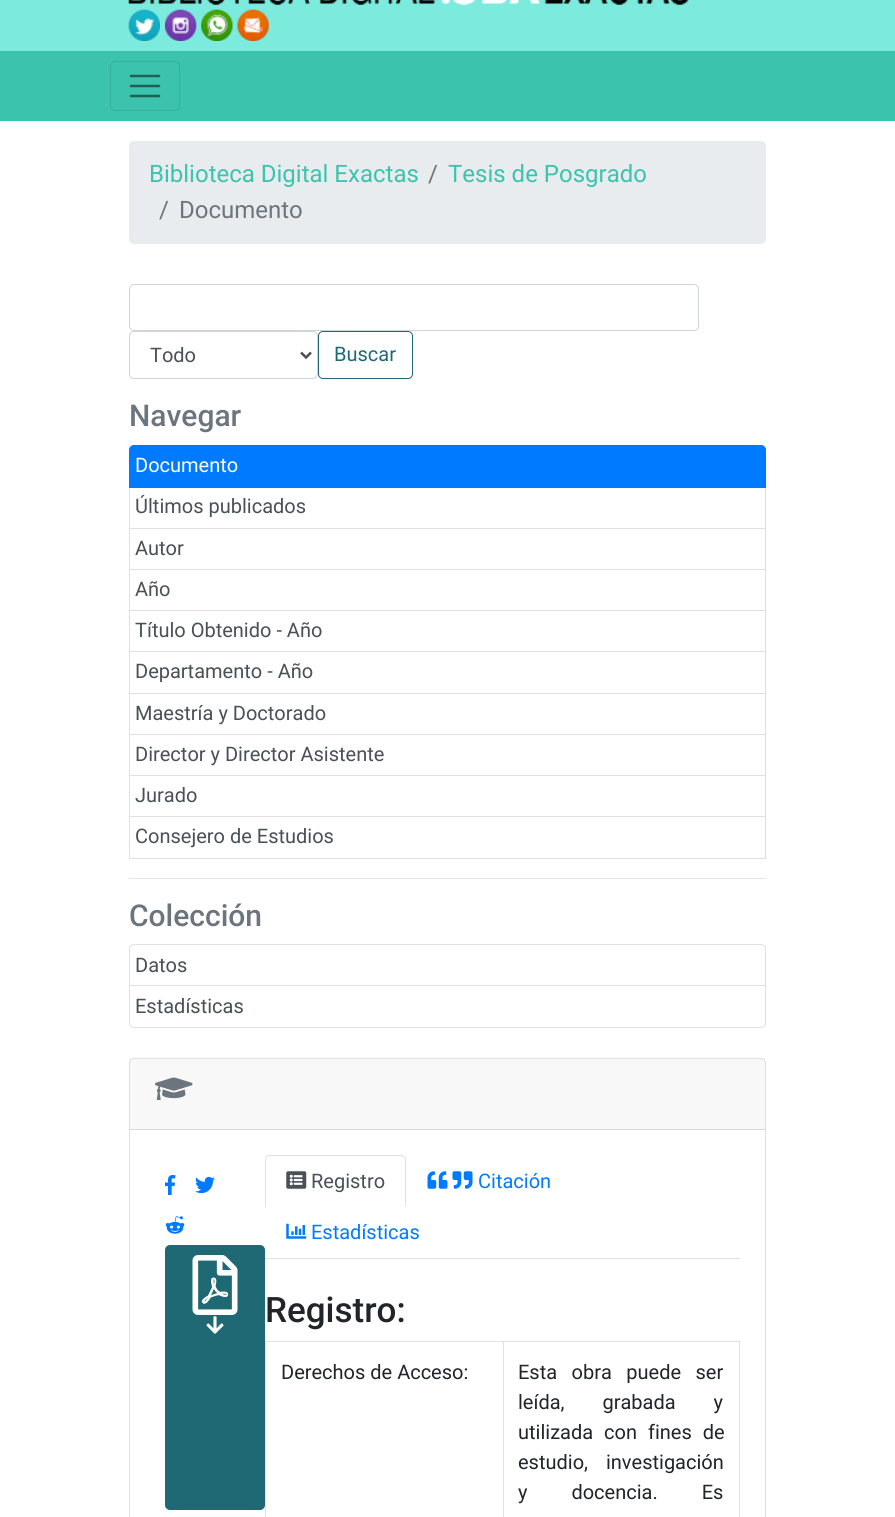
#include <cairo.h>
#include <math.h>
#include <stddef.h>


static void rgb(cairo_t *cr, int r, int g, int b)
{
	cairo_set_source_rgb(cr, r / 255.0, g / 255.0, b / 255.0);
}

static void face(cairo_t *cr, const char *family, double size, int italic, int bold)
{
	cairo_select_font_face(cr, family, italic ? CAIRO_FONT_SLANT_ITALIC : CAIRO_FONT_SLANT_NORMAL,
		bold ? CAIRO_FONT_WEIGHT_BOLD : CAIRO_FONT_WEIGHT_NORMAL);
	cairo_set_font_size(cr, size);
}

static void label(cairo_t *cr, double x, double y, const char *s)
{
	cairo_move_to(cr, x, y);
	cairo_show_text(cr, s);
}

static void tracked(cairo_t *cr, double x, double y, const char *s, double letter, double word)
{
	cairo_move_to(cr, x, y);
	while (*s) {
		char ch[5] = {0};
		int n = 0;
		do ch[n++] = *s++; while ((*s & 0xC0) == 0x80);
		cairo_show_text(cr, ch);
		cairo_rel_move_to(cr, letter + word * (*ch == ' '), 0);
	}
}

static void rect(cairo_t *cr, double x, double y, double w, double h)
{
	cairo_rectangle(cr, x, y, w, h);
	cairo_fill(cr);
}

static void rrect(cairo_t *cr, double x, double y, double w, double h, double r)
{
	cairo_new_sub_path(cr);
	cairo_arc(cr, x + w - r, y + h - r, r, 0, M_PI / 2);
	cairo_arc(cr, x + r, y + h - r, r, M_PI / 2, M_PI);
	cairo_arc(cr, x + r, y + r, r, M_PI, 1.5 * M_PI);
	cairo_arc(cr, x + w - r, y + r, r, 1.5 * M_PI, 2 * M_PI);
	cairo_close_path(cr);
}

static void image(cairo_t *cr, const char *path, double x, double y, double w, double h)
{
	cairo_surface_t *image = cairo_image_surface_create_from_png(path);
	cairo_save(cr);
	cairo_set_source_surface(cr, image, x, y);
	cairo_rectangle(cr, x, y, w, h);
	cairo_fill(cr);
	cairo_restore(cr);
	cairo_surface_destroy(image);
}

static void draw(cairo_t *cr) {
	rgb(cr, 255, 255, 255);
	cairo_paint(cr);
	rgb(cr, 124, 234, 221);
	rect(cr, 0, 0, 895, 51);
	image(cr, "image0.png", 128, 0, 561, 5);
	image(cr, "image1.png", 128, 9, 32, 32);
	image(cr, "image2.png", 165, 9, 32, 32);
	image(cr, "image3.png", 201, 9, 32, 32);
	image(cr, "image4.png", 237, 9, 32, 32);
	rgb(cr, 59, 195, 173);
	rect(cr, 0, 51, 895, 70);
	rrect(cr, 110.5, 61.5, 69, 49, 4.5);
	rgb(cr, 53, 176, 156);
	cairo_set_line_width(cr, 1);
	cairo_stroke(cr);
	cairo_new_path(cr);
	cairo_move_to(cr, 131, 76);
	cairo_line_to(cr, 159, 76);
	cairo_move_to(cr, 131, 86);
	cairo_line_to(cr, 159, 86);
	cairo_move_to(cr, 131, 96);
	cairo_line_to(cr, 159, 96);
	rgb(cr, 30, 98, 87);
	cairo_set_line_width(cr, 2.5);
	cairo_set_line_cap(cr, CAIRO_LINE_CAP_ROUND);
	cairo_stroke(cr);
	rgb(cr, 233, 236, 239);
	rrect(cr, 129, 141, 637, 103, 5);
	cairo_fill(cr);
	face(cr, "Roboto", 24, 0, 0);
	rgb(cr, 59, 195, 173);
	label(cr, 149, 182, "Biblioteca Digital Exactas");
	rgb(cr, 108, 117, 125);
	label(cr, 428, 182, "/");
	rgb(cr, 59, 195, 173);
	label(cr, 448, 182, "Tesis de Posgrado");
	rgb(cr, 108, 117, 125);
	label(cr, 159, 218, "/");
	label(cr, 179, 218, "Documento");
	rrect(cr, 129.5, 284.5, 569, 46, 4.5);
	rgb(cr, 206, 212, 218);
	cairo_set_line_width(cr, 1);
	cairo_set_line_cap(cr, CAIRO_LINE_CAP_BUTT);
	cairo_stroke(cr);
	rrect(cr, 129.5, 331.5, 188, 47, 4.5);
	cairo_stroke(cr);
	cairo_new_path(cr);
	cairo_move_to(cr, 301, 352.5);
	cairo_line_to(cr, 306, 357.5);
	cairo_line_to(cr, 311, 352.5);
	rgb(cr, 73, 80, 87);
	cairo_set_line_width(cr, 2.5);
	cairo_stroke(cr);
	face(cr, "Roboto", 20, 0, 0);
	label(cr, 150, 362, "Todo");
	rrect(cr, 318.5, 331.5, 94, 47, 4.5);
	rgb(cr, 31, 105, 116);
	cairo_set_line_width(cr, 1);
	cairo_stroke(cr);
	label(cr, 334, 361, "Buscar");
	face(cr, "Roboto Medium", 30, 0, 0);
	rgb(cr, 108, 117, 125);
	label(cr, 129, 426, "Navegar");
	cairo_rectangle(cr, 129.5, 486.5, 636, 42);
	rgb(cr, 223, 223, 223);
	cairo_stroke(cr);
	rgb(cr, 0, 123, 255);
	cairo_new_path(cr);
	cairo_move_to(cr, 134, 445.5);
	cairo_line_to(cr, 761, 445.5);
	cairo_curve_to(cr, 763.5, 445.5, 765.5, 447.5, 765.5, 450);
	cairo_line_to(cr, 765.5, 487.5);
	cairo_line_to(cr, 129.5, 487.5);
	cairo_line_to(cr, 129.5, 450);
	cairo_curve_to(cr, 129.5, 447.5, 131.5, 445.5, 134, 445.5);
	cairo_close_path(cr);
	cairo_fill_preserve(cr);
	cairo_stroke(cr);
	face(cr, "Roboto", 20, 0, 0);
	rgb(cr, 255, 255, 255);
	label(cr, 135, 472, "Documento");
	rgb(cr, 73, 80, 87);
	label(cr, 135, 513, "Últimos publicados");
	cairo_rectangle(cr, 129.5, 528.5, 636, 41);
	rgb(cr, 223, 223, 223);
	cairo_stroke(cr);
	rgb(cr, 73, 80, 87);
	label(cr, 135, 555, "Autor");
	cairo_rectangle(cr, 129.5, 569.5, 636, 41);
	rgb(cr, 223, 223, 223);
	cairo_stroke(cr);
	rgb(cr, 73, 80, 87);
	label(cr, 135, 596, "Año");
	cairo_rectangle(cr, 129.5, 610.5, 636, 42);
	rgb(cr, 223, 223, 223);
	cairo_stroke(cr);
	rgb(cr, 73, 80, 87);
	label(cr, 135, 637, "Título Obtenido - Año");
	rgb(cr, 255, 255, 255);
	rect(cr, 130, 652, 635, 1);
	cairo_rectangle(cr, 129.5, 651.5, 636, 42);
	rgb(cr, 223, 223, 223);
	cairo_stroke(cr);
	rgb(cr, 73, 80, 87);
	label(cr, 135, 678, "Departamento - Año");
	cairo_rectangle(cr, 129.5, 693.5, 636, 41);
	rgb(cr, 223, 223, 223);
	cairo_stroke(cr);
	rgb(cr, 73, 80, 87);
	label(cr, 135, 720, "Maestría y Doctorado");
	cairo_rectangle(cr, 129.5, 734.5, 636, 41);
	rgb(cr, 223, 223, 223);
	cairo_stroke(cr);
	rgb(cr, 73, 80, 87);
	label(cr, 135, 761, "Director y Director Asistente");
	cairo_rectangle(cr, 129.5, 775.5, 636, 42);
	rgb(cr, 223, 223, 223);
	cairo_stroke(cr);
	rgb(cr, 73, 80, 87);
	label(cr, 135, 802, "Jurado");
	rgb(cr, 255, 255, 255);
	rect(cr, 130, 817, 635, 1);
	cairo_rectangle(cr, 129.5, 816.5, 636, 42);
	rgb(cr, 223, 223, 223);
	cairo_stroke(cr);
	rgb(cr, 73, 80, 87);
	label(cr, 135, 843, "Consejero de Estudios");
	rgb(cr, 230, 230, 230);
	rect(cr, 129, 878, 637, 1);
	face(cr, "Roboto Medium", 30, 0, 0);
	rgb(cr, 108, 117, 125);
	label(cr, 129, 926, "Colección");
	cairo_new_path(cr);
	cairo_move_to(cr, 134, 944.5);
	cairo_line_to(cr, 761, 944.5);
	cairo_curve_to(cr, 763.5, 944.5, 765.5, 946.5, 765.5, 949);
	cairo_line_to(cr, 765.5, 985.5);
	cairo_line_to(cr, 129.5, 985.5);
	cairo_line_to(cr, 129.5, 949);
	cairo_curve_to(cr, 129.5, 946.5, 131.5, 944.5, 134, 944.5);
	cairo_close_path(cr);
	rgb(cr, 223, 223, 223);
	cairo_stroke(cr);
	face(cr, "Roboto", 20, 0, 0);
	rgb(cr, 73, 80, 87);
	label(cr, 135, 972, "Datos");
	rgb(cr, 255, 255, 255);
	cairo_new_path(cr);
	cairo_move_to(cr, 129.5, 985.5);
	cairo_line_to(cr, 765.5, 985.5);
	cairo_line_to(cr, 765.5, 1023);
	cairo_curve_to(cr, 765.5, 1025.5, 763.5, 1027.5, 761, 1027.5);
	cairo_line_to(cr, 134, 1027.5);
	cairo_curve_to(cr, 131.5, 1027.5, 129.5, 1025.5, 129.5, 1023);
	cairo_close_path(cr);
	cairo_fill_preserve(cr);
	rgb(cr, 223, 223, 223);
	cairo_stroke(cr);
	rgb(cr, 73, 80, 87);
	label(cr, 135, 1013, "Estadísticas");
	rrect(cr, 129.5, 1058.5, 636, 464, 4.5);
	rgb(cr, 223, 223, 223);
	cairo_stroke(cr);
	cairo_set_source_rgba(cr, 0, 0, 0, 0.03);
	rect(cr, 130, 1059, 635, 70);
	rgb(cr, 216, 216, 216);
	rect(cr, 130, 1129, 635, 1);
	image(cr, "image5.png", 155, 1077, 38, 23);
	image(cr, "image6.png", 165, 1175, 11, 20);
	image(cr, "image7.png", 195, 1176, 20, 18);
	image(cr, "image8.png", 165, 1216, 20, 18);
	rgb(cr, 31, 105, 116);
	rrect(cr, 165, 1245, 100, 265, 5);
	cairo_fill(cr);
	image(cr, "image9.png", 192, 1255, 46, 60);
	image(cr, "image10.png", 206, 1316, 18, 18);
	rgb(cr, 222, 226, 230);
	rect(cr, 265, 1258, 475, 1);
	cairo_new_path(cr);
	cairo_move_to(cr, 270, 1155);
	cairo_curve_to(cr, 268, 1155, 267, 1156, 266, 1156);
	cairo_line_to(cr, 267, 1157);
	cairo_line_to(cr, 270, 1156);
	cairo_line_to(cr, 401, 1156);
	cairo_line_to(cr, 404, 1157);
	cairo_line_to(cr, 405, 1157);
	cairo_curve_to(cr, 404, 1156, 403, 1155, 401, 1155);
	cairo_close_path(cr);
	cairo_fill(cr);
	cairo_new_path(cr);
	cairo_move_to(cr, 405, 1157);
	cairo_curve_to(cr, 406, 1157, 406, 1159, 406, 1160);
	cairo_line_to(cr, 406, 1207);
	cairo_line_to(cr, 405, 1206);
	cairo_line_to(cr, 405, 1160);
	cairo_curve_to(cr, 405, 1159, 405, 1158, 404, 1157);
	cairo_close_path(cr);
	cairo_fill(cr);
	rgb(cr, 255, 255, 255);
	cairo_new_path(cr);
	cairo_move_to(cr, 406, 1208);
	cairo_line_to(cr, 265, 1208);
	cairo_line_to(cr, 266, 1206);
	cairo_line_to(cr, 405, 1206);
	cairo_close_path(cr);
	cairo_fill(cr);
	rgb(cr, 222, 226, 230);
	cairo_new_path(cr);
	cairo_move_to(cr, 265, 1208);
	cairo_line_to(cr, 266, 1206);
	cairo_line_to(cr, 266, 1160);
	cairo_curve_to(cr, 266, 1159, 266, 1158, 267, 1157);
	cairo_line_to(cr, 266, 1156);
	cairo_curve_to(cr, 266, 1157, 265, 1158, 265, 1160);
	cairo_close_path(cr);
	cairo_fill(cr);
	image(cr, "image11.png", 286, 1171, 21, 18);
	rgb(cr, 73, 80, 87);
	label(cr, 311, 1188, "Registro");
	image(cr, "image12.png", 427, 1171, 21, 18);
	image(cr, "image13.png", 452, 1171, 21, 18);
	rgb(cr, 0, 123, 255);
	label(cr, 478, 1188, "Citación");
	image(cr, "image14.png", 286, 1223, 21, 16);
	label(cr, 311, 1239, "Estadísticas");
	face(cr, "Roboto Medium", 35, 0, 0);
	rgb(cr, 33, 37, 41);
	label(cr, 265, 1322, "Registro:");
	rgb(cr, 222, 226, 230);
	rect(cr, 503, 1341, 237, 1);
	rect(cr, 503, 1341, 1, 176);
	rect(cr, 265, 1341, 239, 1);
	rect(cr, 265, 1341, 1, 176);
	face(cr, "Roboto", 20, 0, 0);
	rgb(cr, 33, 37, 41);
	label(cr, 281, 1379, "Derechos de Acceso:");
	rgb(cr, 222, 226, 230);
	rect(cr, 739, 1341, 1, 176);
	rgb(cr, 33, 37, 41);
	tracked(cr, 518, 1379, "Esta obra puede ser", 0, 9.5);
	tracked(cr, 518, 1409, "leída, grabada y", 0, 33);
	tracked(cr, 518, 1439, "utilizada con fines de", 0, 6);
	tracked(cr, 518, 1469, "estudio, investigación", 0, 13);
	tracked(cr, 518, 1499, "y docencia. Es", 0, 39);
}

int main(void) {
	cairo_surface_t *surface = cairo_image_surface_create(CAIRO_FORMAT_RGB24, 895, 1517);
	cairo_t *cr = cairo_create(surface);
	cairo_font_options_t *options = cairo_font_options_create();
	cairo_font_options_set_hint_metrics(options, CAIRO_HINT_METRICS_OFF);
	cairo_font_options_set_hint_style(options, CAIRO_HINT_STYLE_NONE);
	cairo_set_font_options(cr, options);
	cairo_set_miter_limit(cr, 4);
	draw(cr);
	cairo_surface_write_to_png(surface, "render.png");
	cairo_font_options_destroy(options);
	cairo_destroy(cr);
	cairo_surface_destroy(surface);
	return 0;
}
